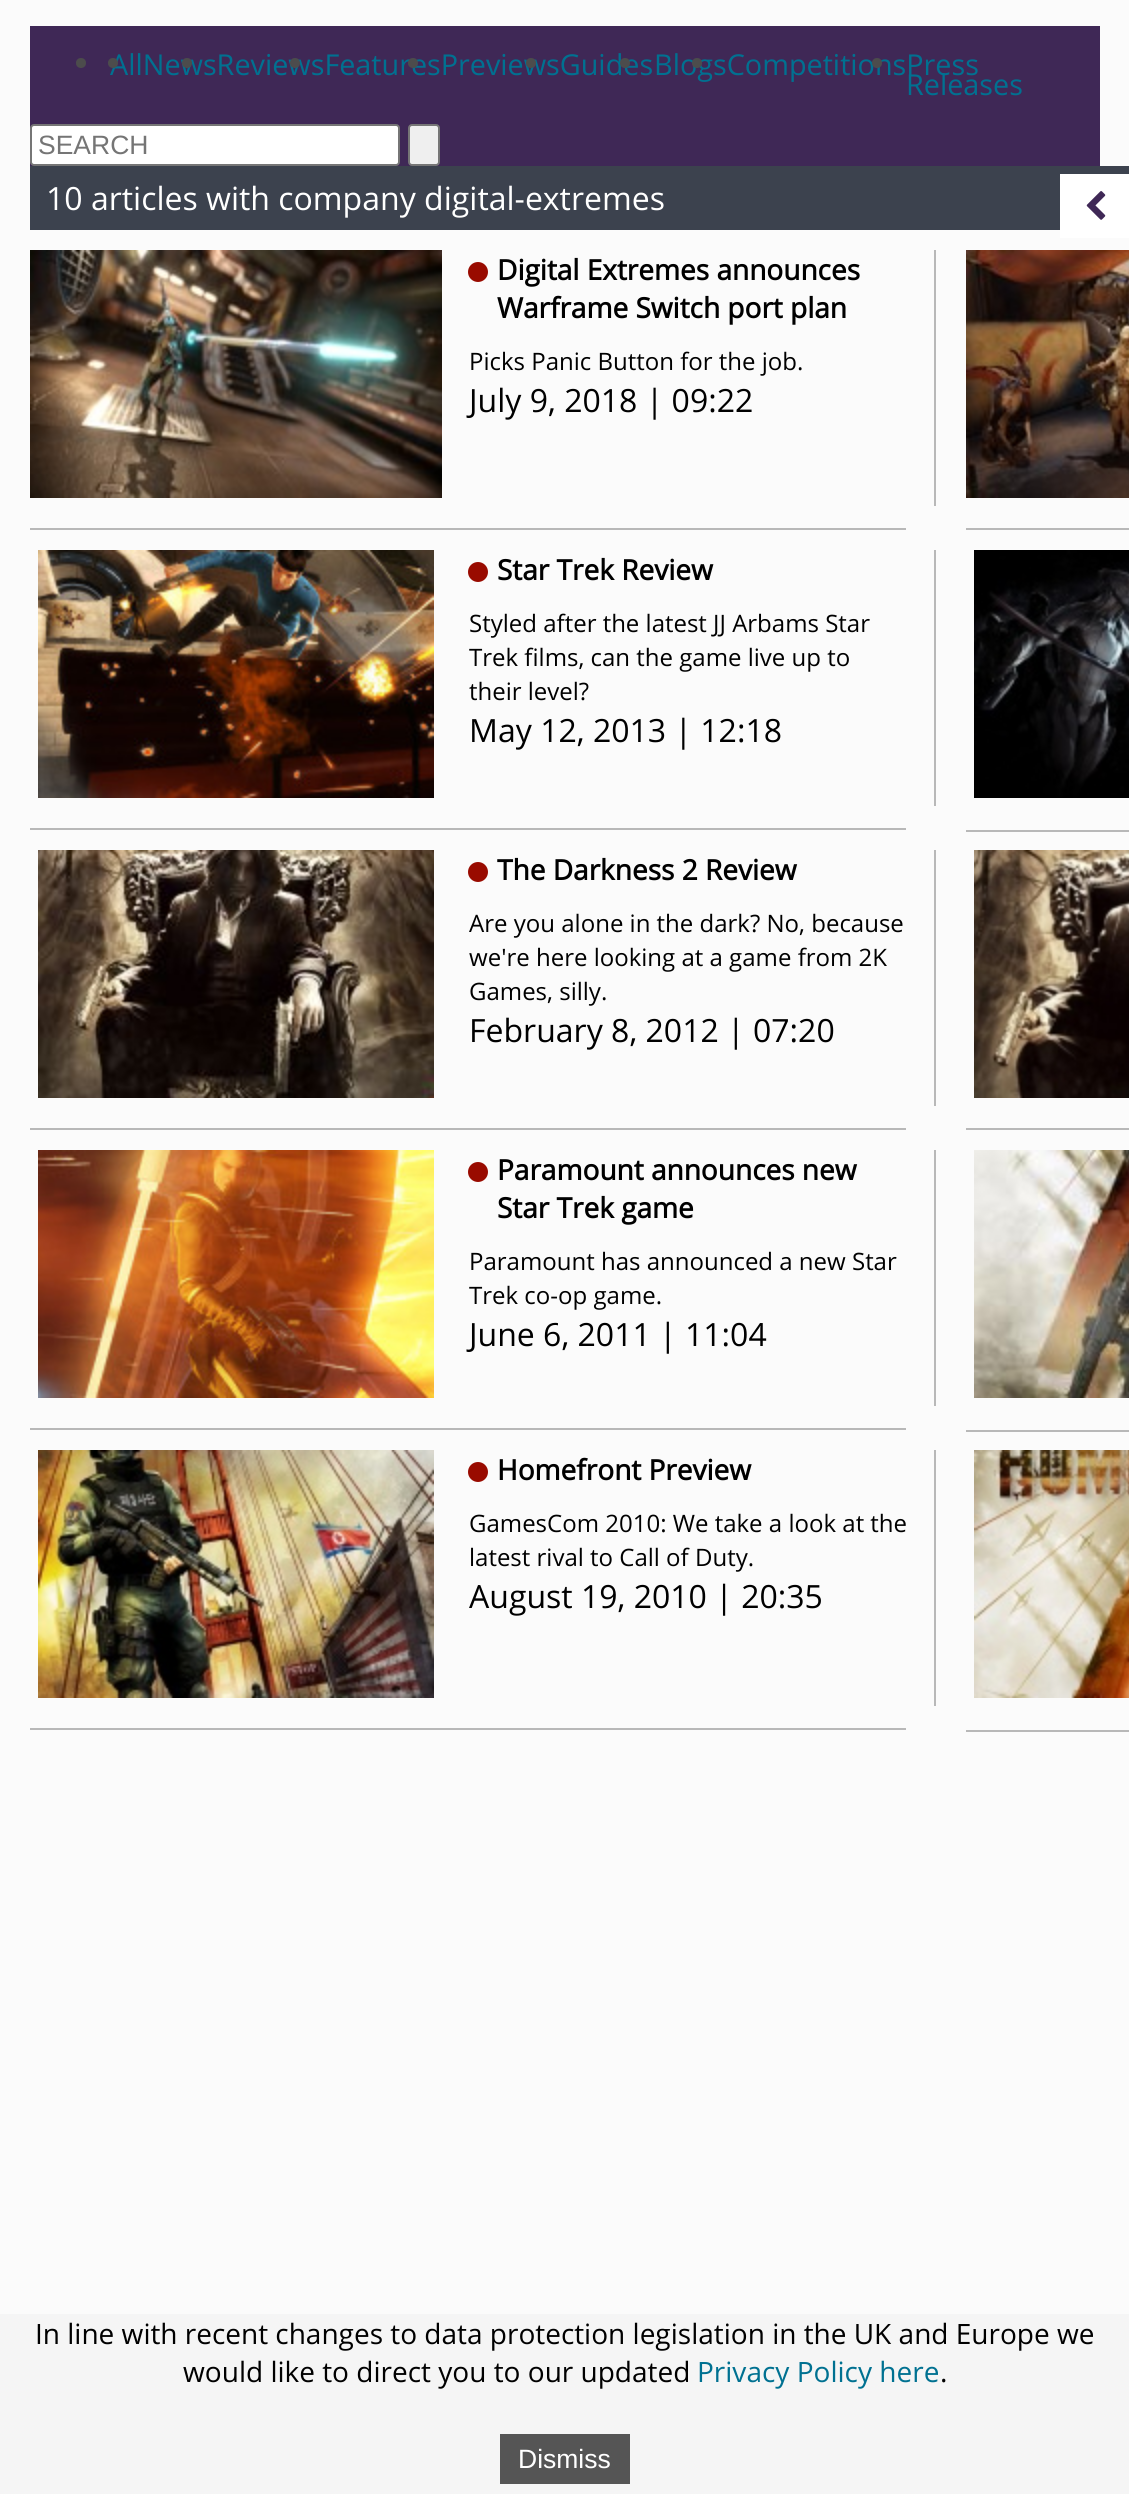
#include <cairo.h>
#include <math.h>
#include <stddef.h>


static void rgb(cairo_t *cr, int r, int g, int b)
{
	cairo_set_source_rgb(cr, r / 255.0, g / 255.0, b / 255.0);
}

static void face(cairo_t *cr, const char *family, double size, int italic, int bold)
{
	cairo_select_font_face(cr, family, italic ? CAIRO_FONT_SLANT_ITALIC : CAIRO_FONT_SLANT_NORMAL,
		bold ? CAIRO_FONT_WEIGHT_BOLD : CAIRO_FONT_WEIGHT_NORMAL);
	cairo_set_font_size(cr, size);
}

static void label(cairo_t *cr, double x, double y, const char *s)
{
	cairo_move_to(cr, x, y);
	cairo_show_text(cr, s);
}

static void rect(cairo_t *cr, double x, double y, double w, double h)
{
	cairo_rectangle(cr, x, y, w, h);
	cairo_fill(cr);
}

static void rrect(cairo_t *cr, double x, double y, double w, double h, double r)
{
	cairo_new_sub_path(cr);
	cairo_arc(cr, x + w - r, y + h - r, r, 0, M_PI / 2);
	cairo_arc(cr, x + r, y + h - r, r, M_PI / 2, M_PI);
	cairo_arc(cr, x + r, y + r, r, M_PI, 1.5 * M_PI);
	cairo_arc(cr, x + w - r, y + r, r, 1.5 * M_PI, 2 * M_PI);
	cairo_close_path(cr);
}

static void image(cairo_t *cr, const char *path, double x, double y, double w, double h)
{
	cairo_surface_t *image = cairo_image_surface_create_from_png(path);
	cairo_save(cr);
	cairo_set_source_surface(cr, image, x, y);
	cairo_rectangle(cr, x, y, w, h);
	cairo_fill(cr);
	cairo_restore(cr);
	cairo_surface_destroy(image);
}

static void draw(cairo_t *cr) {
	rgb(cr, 251, 251, 251);
	cairo_paint(cr);
	rgb(cr, 63, 40, 86);
	rect(cr, 30, 26, 1070, 140);
	rgb(cr, 76, 76, 76);
	cairo_arc(cr, 81, 63, 5, 0, 2 * M_PI);
	cairo_fill(cr);
	face(cr, "Open Sans", 28.75, 0, 0);
	rgb(cr, 0, 113, 145);
	label(cr, 110, 75, "AllNewsReviewsFeaturesPreviewsGuides");
	rgb(cr, 76, 76, 76);
	cairo_new_path(cr);
	cairo_arc(cr, 625, 63, 5, 0, 2 * M_PI);
	cairo_fill(cr);
	rgb(cr, 0, 113, 145);
	label(cr, 654, 75, "BlogsCompetitionsPress");
	rgb(cr, 76, 76, 76);
	cairo_new_path(cr);
	cairo_arc(cr, 113, 63, 5, 0, 2 * M_PI);
	cairo_fill(cr);
	cairo_arc(cr, 187, 63, 5, 0, 2 * M_PI);
	cairo_fill(cr);
	cairo_arc(cr, 295, 63, 5, 0, 2 * M_PI);
	cairo_fill(cr);
	cairo_arc(cr, 413, 63, 5, 0, 2 * M_PI);
	cairo_fill(cr);
	cairo_arc(cr, 531, 63, 5, 0, 2 * M_PI);
	cairo_fill(cr);
	cairo_arc(cr, 697, 63, 5, 0, 2 * M_PI);
	cairo_fill(cr);
	cairo_arc(cr, 877, 63, 5, 0, 2 * M_PI);
	cairo_fill(cr);
	rgb(cr, 0, 113, 145);
	label(cr, 906, 95, "Releases");
	rgb(cr, 255, 255, 255);
	rrect(cr, 31, 125, 368, 40, 3);
	cairo_fill_preserve(cr);
	rgb(cr, 118, 118, 118);
	cairo_stroke(cr);
	face(cr, "Liberation Sans", 26.5, 0, 0);
	rgb(cr, 117, 117, 117);
	label(cr, 38, 154, "SEARCH");
	rgb(cr, 239, 239, 239);
	rrect(cr, 409, 125, 30, 40, 3);
	cairo_fill_preserve(cr);
	rgb(cr, 118, 118, 118);
	cairo_stroke(cr);
	rgb(cr, 60, 66, 78);
	rect(cr, 30, 166, 1099, 64);
	face(cr, "Open Sans", 32, 0, 0);
	rgb(cr, 255, 255, 255);
	label(cr, 46, 210, "10 articles with company digital-extremes");
	image(cr, "image0.png", 30, 250, 412, 248);
	rgb(cr, 153, 11, 0);
	cairo_arc(cr, 478, 272, 10, 0, 2 * M_PI);
	cairo_fill(cr);
	face(cr, "Open Sans", 28, 0, 1);
	rgb(cr, 0, 0, 0);
	label(cr, 497, 280, "Digital Extremes announces");
	label(cr, 497, 318, "Warframe Switch port plan");
	face(cr, "Open Sans", 24, 0, 0);
	label(cr, 469, 370, "Picks Panic Button for the job.");
	face(cr, "Open Sans", 32, 0, 0);
	label(cr, 469, 412, "July 9, 2018 | 09:22");
	rgb(cr, 184, 184, 184);
	rect(cr, 934, 250, 2, 256);
	rect(cr, 30, 528, 876, 2);
	image(cr, "image1.png", 966, 250, 163, 248);
	rect(cr, 966, 528, 163, 2);
	image(cr, "image2.png", 38, 550, 396, 248);
	rgb(cr, 153, 11, 0);
	cairo_arc(cr, 478, 572, 10, 0, 2 * M_PI);
	cairo_fill(cr);
	face(cr, "Open Sans", 28, 0, 1);
	rgb(cr, 0, 0, 0);
	label(cr, 497, 580, "Star Trek Review");
	face(cr, "Open Sans", 24, 0, 0);
	label(cr, 469, 632, "Styled after the latest JJ Arbams Star");
	label(cr, 469, 666, "Trek films, can the game live up to");
	label(cr, 469, 700, "their level?");
	face(cr, "Open Sans", 32, 0, 0);
	label(cr, 469, 742, "May 12, 2013 | 12:18");
	rgb(cr, 184, 184, 184);
	rect(cr, 934, 550, 2, 256);
	rect(cr, 30, 828, 876, 2);
	image(cr, "image3.png", 974, 550, 155, 248);
	rect(cr, 966, 830, 163, 2);
	image(cr, "image4.png", 38, 850, 396, 248);
	rgb(cr, 153, 11, 0);
	cairo_arc(cr, 478, 872, 10, 0, 2 * M_PI);
	cairo_fill(cr);
	face(cr, "Open Sans", 28, 0, 1);
	rgb(cr, 0, 0, 0);
	label(cr, 497, 880, "The Darkness 2 Review");
	face(cr, "Open Sans", 24, 0, 0);
	label(cr, 469, 932, "Are you alone in the dark? No, because");
	label(cr, 469, 966, "we're here looking at a game from 2K");
	label(cr, 469, 1000, "Games, silly.");
	face(cr, "Open Sans", 32, 0, 0);
	label(cr, 469, 1042, "February 8, 2012 | 07:20");
	rgb(cr, 184, 184, 184);
	rect(cr, 934, 850, 2, 256);
	rect(cr, 30, 1128, 876, 2);
	image(cr, "image5.png", 974, 850, 155, 248);
	rect(cr, 966, 1128, 163, 2);
	image(cr, "image6.png", 38, 1150, 396, 248);
	rgb(cr, 153, 11, 0);
	cairo_arc(cr, 478, 1172, 10, 0, 2 * M_PI);
	cairo_fill(cr);
	face(cr, "Open Sans", 28, 0, 1);
	rgb(cr, 0, 0, 0);
	label(cr, 497, 1180, "Paramount announces new");
	label(cr, 497, 1218, "Star Trek game");
	face(cr, "Open Sans", 24, 0, 0);
	label(cr, 469, 1270, "Paramount has announced a new Star");
	label(cr, 469, 1304, "Trek co-op game.");
	face(cr, "Open Sans", 32, 0, 0);
	label(cr, 469, 1346, "June 6, 2011 | 11:04");
	rgb(cr, 184, 184, 184);
	rect(cr, 934, 1150, 2, 256);
	rect(cr, 30, 1428, 876, 2);
	image(cr, "image7.png", 974, 1150, 155, 248);
	rect(cr, 966, 1430, 163, 2);
	image(cr, "image8.png", 38, 1450, 396, 248);
	rgb(cr, 153, 11, 0);
	cairo_arc(cr, 478, 1472, 10, 0, 2 * M_PI);
	cairo_fill(cr);
	face(cr, "Open Sans", 28, 0, 1);
	rgb(cr, 0, 0, 0);
	label(cr, 497, 1480, "Homefront Preview");
	face(cr, "Open Sans", 24, 0, 0);
	label(cr, 469, 1532, "GamesCom 2010: We take a look at the");
	label(cr, 469, 1566, "latest rival to Call of Duty.");
	face(cr, "Open Sans", 32, 0, 0);
	label(cr, 469, 1608, "August 19, 2010 | 20:35");
	rgb(cr, 184, 184, 184);
	rect(cr, 934, 1450, 2, 256);
	rect(cr, 30, 1728, 876, 2);
	image(cr, "image9.png", 974, 1450, 155, 248);
	rect(cr, 966, 1730, 163, 2);
	rgb(cr, 255, 255, 255);
	rect(cr, 1060, 174, 69, 64);
	image(cr, "image10.png", 1086, 191, 20, 29);
	rgb(cr, 245, 245, 245);
	rect(cr, 0, 2314, 1129, 180);
	face(cr, "Open Sans", 28, 0, 0);
	rgb(cr, 0, 0, 0);
	label(cr, 35, 2344, "In line with recent changes to data protection legislation in the UK and Europe we");
	label(cr, 183, 2382, "would like to direct you to our updated");
	rgb(cr, 0, 113, 145);
	label(cr, 697, 2382, "Privacy Policy here");
	rgb(cr, 0, 0, 0);
	label(cr, 940, 2382, ".");
	rgb(cr, 85, 85, 85);
	rect(cr, 500, 2434, 130, 50);
	face(cr, "Liberation Sans", 26.5, 0, 0);
	rgb(cr, 255, 255, 255);
	label(cr, 518, 2468, "Dismiss");
}

int main(void) {
	cairo_surface_t *surface = cairo_image_surface_create(CAIRO_FORMAT_RGB24, 1129, 2494);
	cairo_t *cr = cairo_create(surface);
	cairo_font_options_t *options = cairo_font_options_create();
	cairo_font_options_set_hint_metrics(options, CAIRO_HINT_METRICS_OFF);
	cairo_font_options_set_hint_style(options, CAIRO_HINT_STYLE_NONE);
	cairo_set_font_options(cr, options);
	cairo_set_miter_limit(cr, 4);
	draw(cr);
	cairo_surface_write_to_png(surface, "render.png");
	cairo_font_options_destroy(options);
	cairo_destroy(cr);
	cairo_surface_destroy(surface);
	return 0;
}
